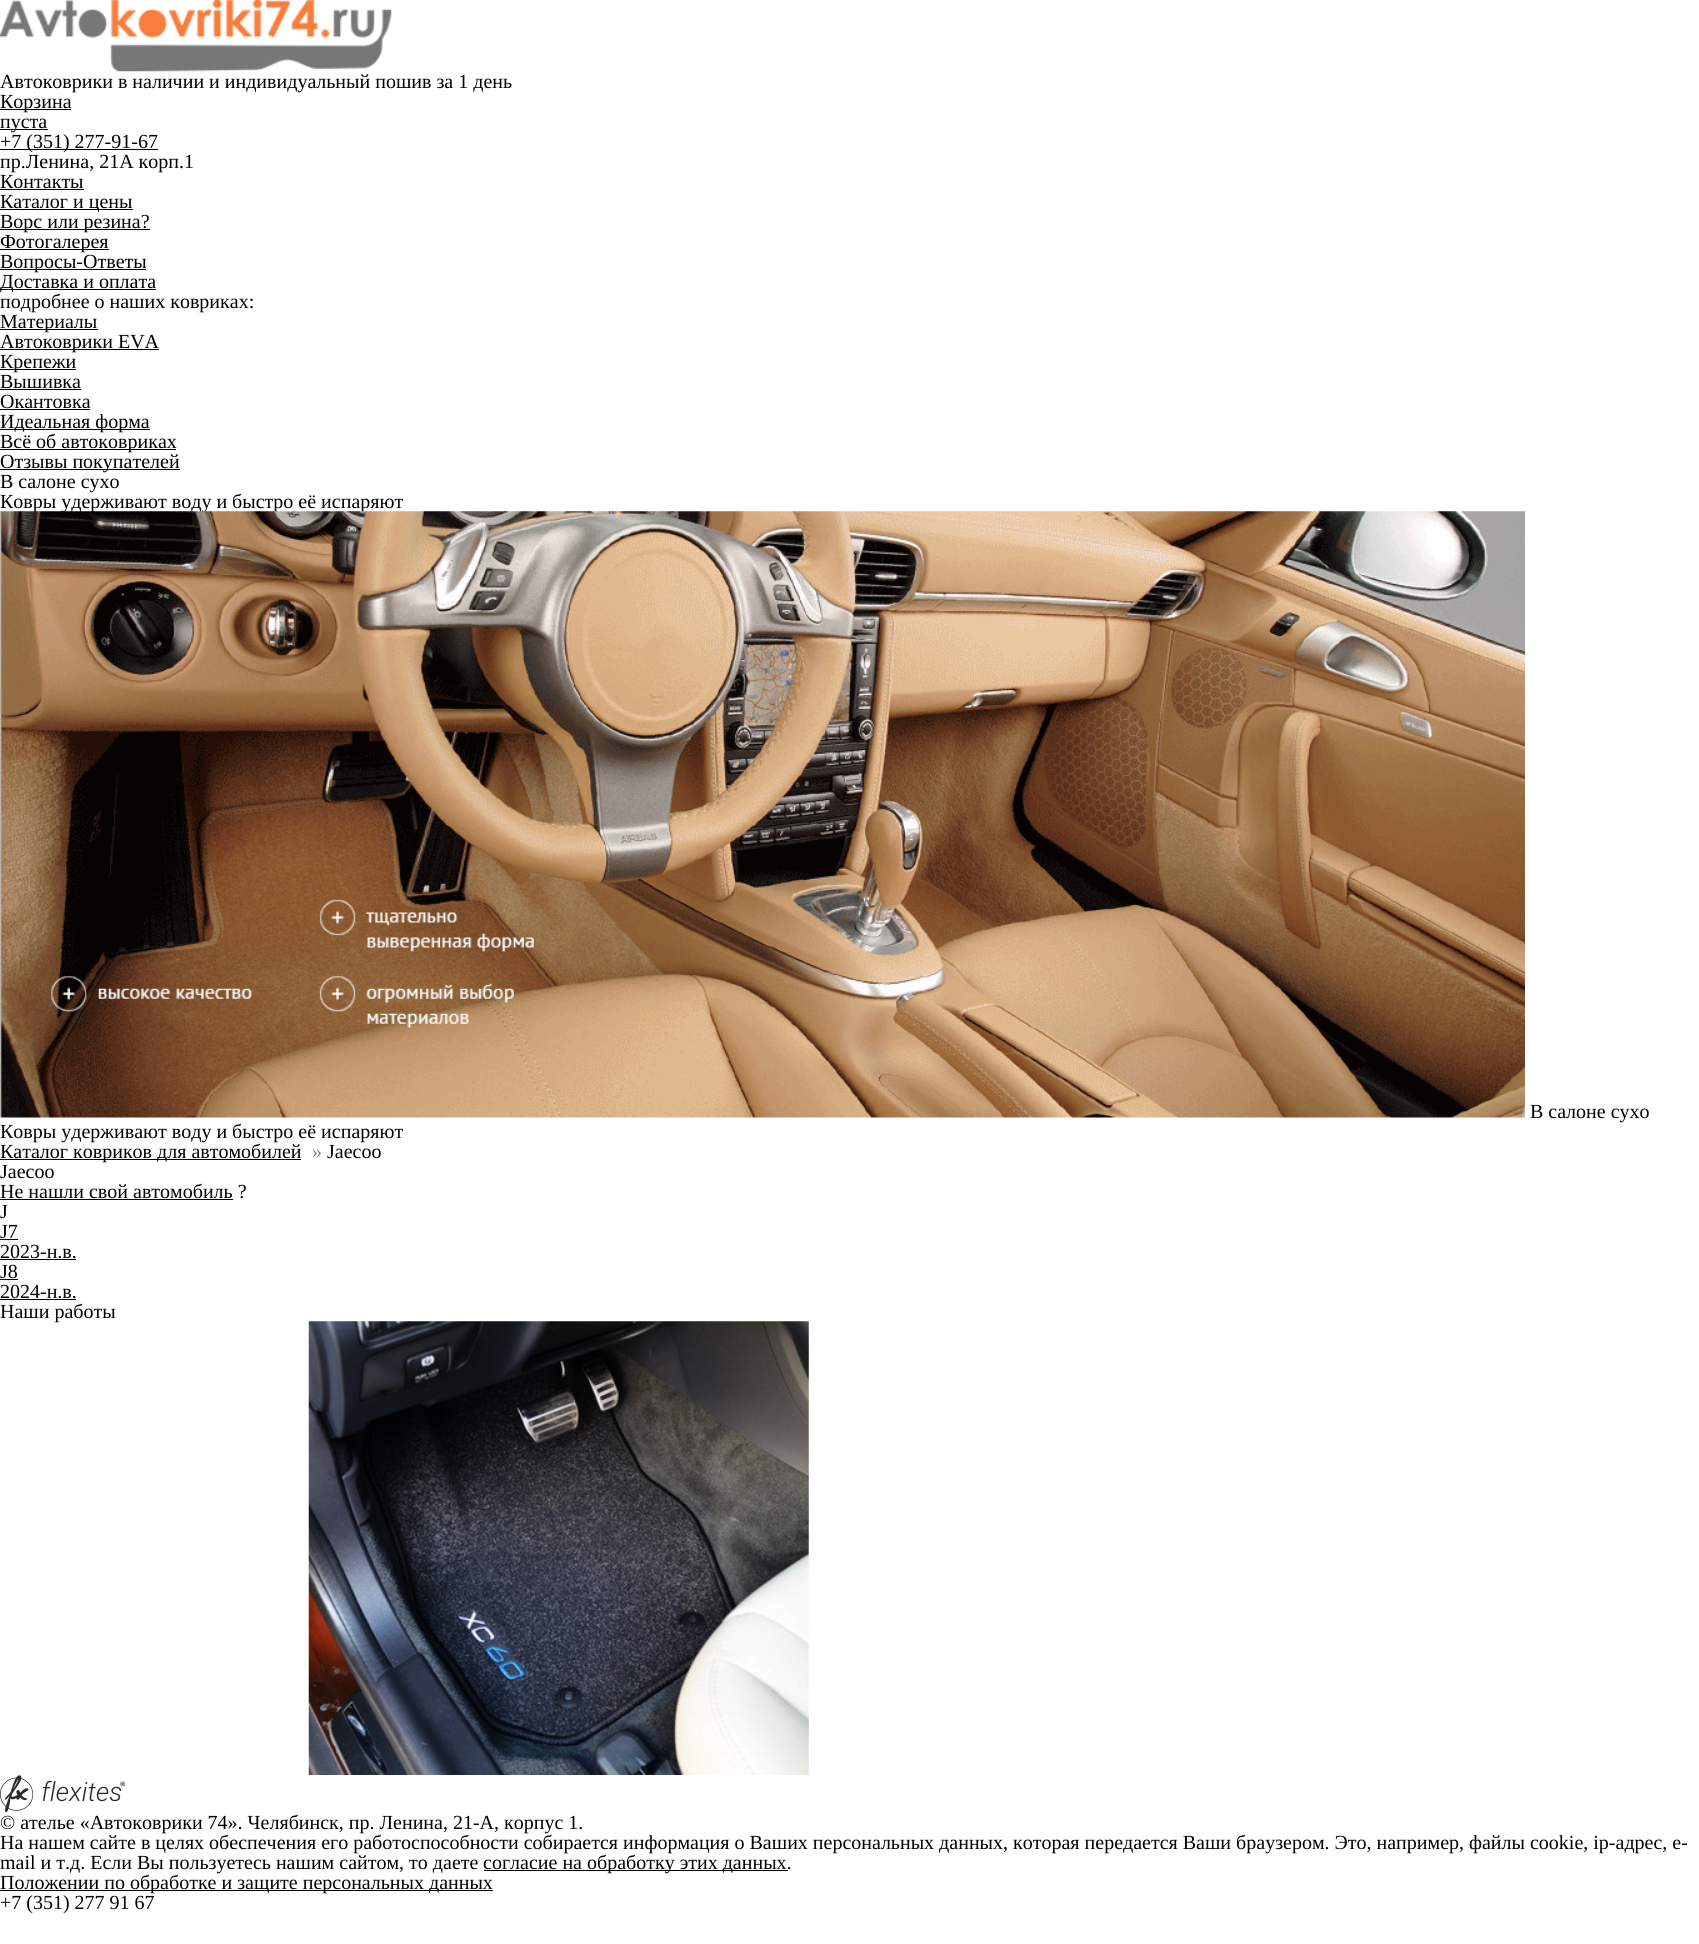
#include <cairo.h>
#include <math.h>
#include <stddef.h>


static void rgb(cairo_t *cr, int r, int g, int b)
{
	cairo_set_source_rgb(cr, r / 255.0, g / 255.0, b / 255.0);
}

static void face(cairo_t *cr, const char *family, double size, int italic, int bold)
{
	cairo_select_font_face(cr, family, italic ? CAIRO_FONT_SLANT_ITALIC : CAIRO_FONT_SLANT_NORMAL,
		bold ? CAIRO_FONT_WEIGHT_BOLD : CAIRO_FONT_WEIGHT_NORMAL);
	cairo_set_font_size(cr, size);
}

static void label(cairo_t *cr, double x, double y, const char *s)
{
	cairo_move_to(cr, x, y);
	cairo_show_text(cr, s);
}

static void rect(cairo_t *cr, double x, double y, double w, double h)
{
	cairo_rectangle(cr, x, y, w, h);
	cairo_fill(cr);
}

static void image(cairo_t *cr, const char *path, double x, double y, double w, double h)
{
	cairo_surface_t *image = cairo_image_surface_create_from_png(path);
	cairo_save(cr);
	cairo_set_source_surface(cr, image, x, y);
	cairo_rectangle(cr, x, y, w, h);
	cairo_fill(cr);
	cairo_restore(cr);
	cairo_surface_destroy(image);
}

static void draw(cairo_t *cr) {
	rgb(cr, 255, 255, 255);
	cairo_paint(cr);
	image(cr, "image0.png", 0, 0, 392, 72);
	face(cr, "Liberation Serif", 20, 0, 0);
	rgb(cr, 0, 0, 0);
	label(cr, 0, 88, "Автоковрики в наличии и индивидуальный пошив за 1 день");
	rect(cr, 0, 109, 71, 1);
	label(cr, 0, 108, "Корзина");
	rect(cr, 0, 129, 48, 1);
	label(cr, 0, 128, "пуста");
	rect(cr, 0, 149, 158, 1);
	label(cr, 0, 148, "+7 (351) 277-91-67");
	label(cr, 0, 168, "пр.Ленина, 21А корп.1");
	label(cr, 0, 188, "Контакты");
	rect(cr, 0, 189, 84, 1);
	rect(cr, 0, 209, 133, 1);
	label(cr, 0, 208, "Каталог и цены");
	rect(cr, 0, 229, 150, 1);
	label(cr, 0, 228, "Ворс или резина?");
	rect(cr, 0, 249, 109, 1);
	label(cr, 0, 248, "Фотогалерея");
	rect(cr, 0, 269, 146, 1);
	label(cr, 0, 268, "Вопросы-Ответы");
	rect(cr, 0, 289, 156, 1);
	label(cr, 0, 288, "Доставка и оплата");
	label(cr, 0, 308, "подробнее о наших ковриках:");
	rect(cr, 0, 329, 98, 1);
	label(cr, 0, 328, "Материалы");
	rect(cr, 0, 349, 159, 1);
	label(cr, 0, 348, "Автоковрики EVA");
	rect(cr, 0, 369, 76, 1);
	label(cr, 0, 368, "Крепежи");
	label(cr, 0, 388, "Вышивка");
	rect(cr, 0, 389, 81, 1);
	label(cr, 0, 408, "Окантовка");
	rect(cr, 0, 409, 90, 1);
	rect(cr, 0, 429, 150, 1);
	label(cr, 0, 428, "Идеальная форма");
	rect(cr, 0, 449, 176, 1);
	label(cr, 0, 448, "Всё об автоковриках");
	rect(cr, 0, 469, 180, 1);
	label(cr, 0, 468, "Отзывы покупателей");
	label(cr, 0, 488, "В салоне сухо");
	label(cr, 0, 508, "Ковры удерживают воду и быстро её испаряют");
	image(cr, "image1.png", 0, 511, 1525, 607);
	label(cr, 1530, 1118, "В салоне сухо");
	label(cr, 0, 1138, "Ковры удерживают воду и быстро её испаряют");
	rect(cr, 0, 1159, 301, 1);
	label(cr, 0, 1158, "Каталог ковриков для автомобилей");
	rgb(cr, 128, 128, 128);
	label(cr, 312, 1158, "»");
	rgb(cr, 0, 0, 0);
	label(cr, 327, 1158, "Jaecoo");
	label(cr, 0, 1178, "Jaecoo");
	label(cr, 0, 1198, "Не нашли свой автомобиль ?");
	rect(cr, 0, 1199, 233, 1);
	label(cr, 0, 1218, "J");
	label(cr, 0, 1238, "J7");
	rect(cr, 0, 1239, 18, 1);
	label(cr, 0, 1258, "2023-н.в.");
	rect(cr, 0, 1259, 76, 1);
	label(cr, 0, 1278, "J8");
	rect(cr, 0, 1279, 18, 1);
	label(cr, 0, 1298, "2024-н.в.");
	rect(cr, 0, 1299, 76, 1);
	label(cr, 0, 1318, "Наши работы");
	image(cr, "image2.png", 308, 1321, 501, 454);
	image(cr, "image3.png", 0, 1775, 125, 38);
	label(cr, 0, 1829, "© ателье «Автоковрики 74». Челябинск, пр. Ленина, 21-А, корпус 1.");
	label(cr, 0, 1849, "На нашем сайте в целях обеспечения его работоспособности собирается информация о Ваших персональных данных, которая передается Ваши браузером. Это, например, файлы cookie, ip-адрес, e-");
	label(cr, 0, 1869, "mail и т.д. Если Вы пользуетесь нашим сайтом, то даете");
	rect(cr, 484, 1870, 304, 1);
	label(cr, 483, 1869, "согласие на обработку этих данных.");
	rect(cr, 0, 1890, 493, 1);
	label(cr, 0, 1889, "Положении по обработке и защите персональных данных");
	label(cr, 0, 1909, "+7 (351) 277 91 67");
}

int main(void) {
	cairo_surface_t *surface = cairo_image_surface_create(CAIRO_FORMAT_RGB24, 1699, 1944);
	cairo_t *cr = cairo_create(surface);
	cairo_font_options_t *options = cairo_font_options_create();
	cairo_font_options_set_hint_metrics(options, CAIRO_HINT_METRICS_OFF);
	cairo_font_options_set_hint_style(options, CAIRO_HINT_STYLE_NONE);
	cairo_set_font_options(cr, options);
	cairo_set_miter_limit(cr, 4);
	draw(cr);
	cairo_surface_write_to_png(surface, "render.png");
	cairo_font_options_destroy(options);
	cairo_destroy(cr);
	cairo_surface_destroy(surface);
	return 0;
}
